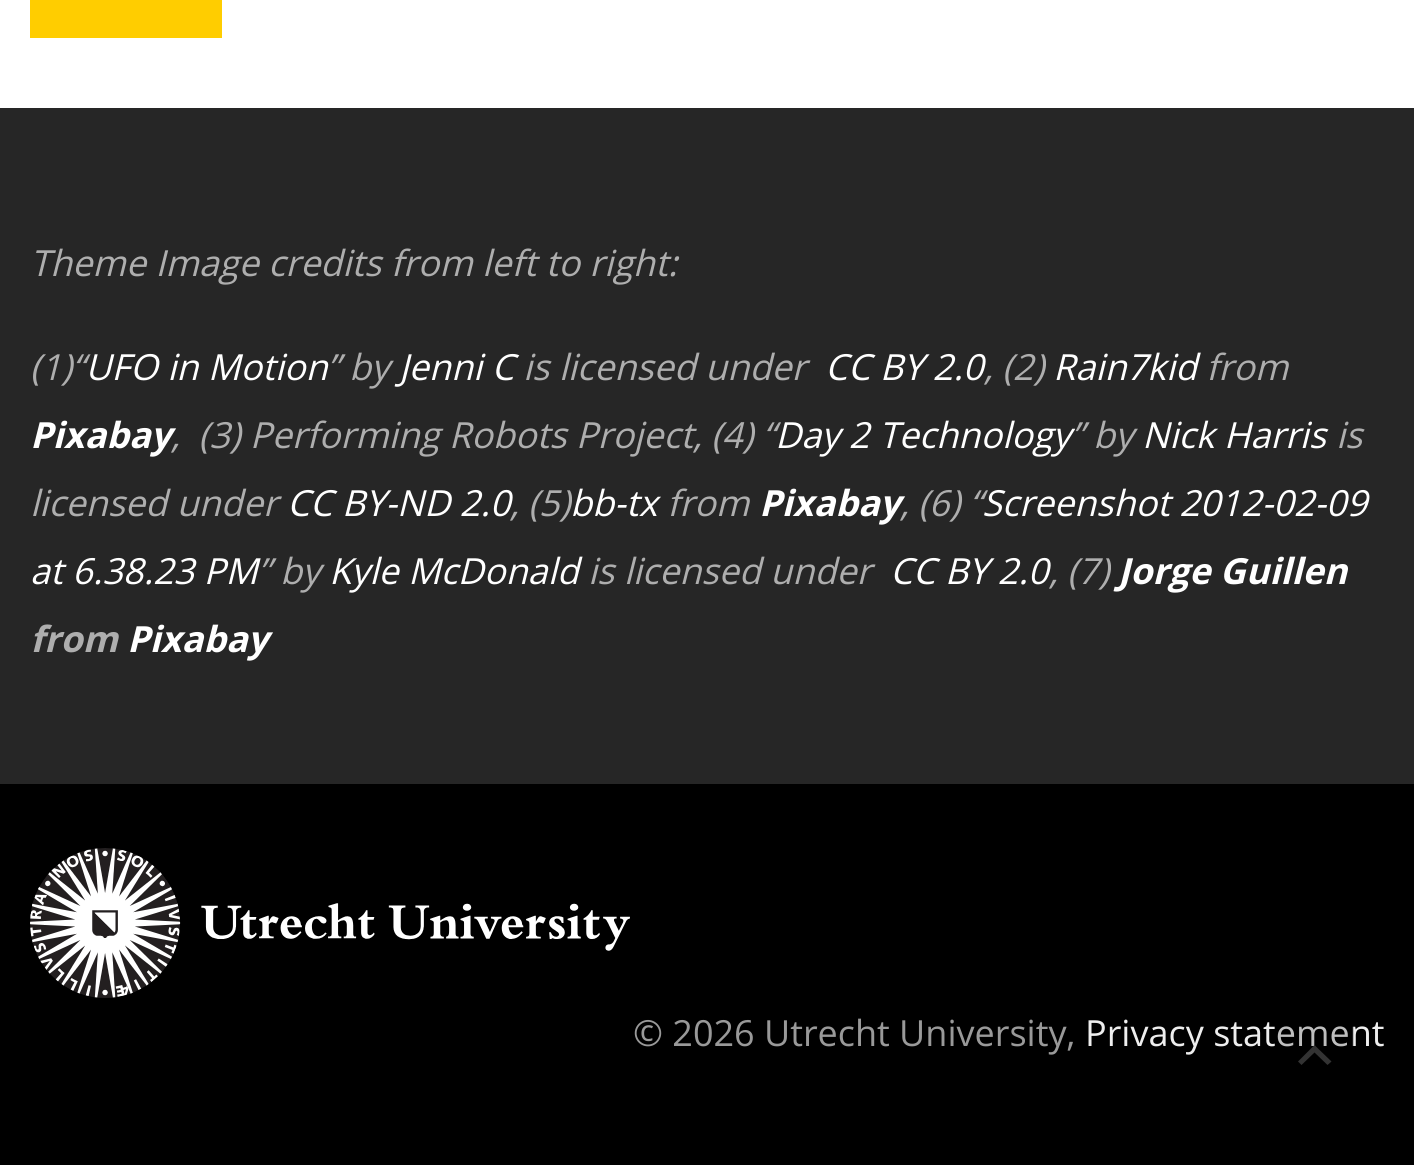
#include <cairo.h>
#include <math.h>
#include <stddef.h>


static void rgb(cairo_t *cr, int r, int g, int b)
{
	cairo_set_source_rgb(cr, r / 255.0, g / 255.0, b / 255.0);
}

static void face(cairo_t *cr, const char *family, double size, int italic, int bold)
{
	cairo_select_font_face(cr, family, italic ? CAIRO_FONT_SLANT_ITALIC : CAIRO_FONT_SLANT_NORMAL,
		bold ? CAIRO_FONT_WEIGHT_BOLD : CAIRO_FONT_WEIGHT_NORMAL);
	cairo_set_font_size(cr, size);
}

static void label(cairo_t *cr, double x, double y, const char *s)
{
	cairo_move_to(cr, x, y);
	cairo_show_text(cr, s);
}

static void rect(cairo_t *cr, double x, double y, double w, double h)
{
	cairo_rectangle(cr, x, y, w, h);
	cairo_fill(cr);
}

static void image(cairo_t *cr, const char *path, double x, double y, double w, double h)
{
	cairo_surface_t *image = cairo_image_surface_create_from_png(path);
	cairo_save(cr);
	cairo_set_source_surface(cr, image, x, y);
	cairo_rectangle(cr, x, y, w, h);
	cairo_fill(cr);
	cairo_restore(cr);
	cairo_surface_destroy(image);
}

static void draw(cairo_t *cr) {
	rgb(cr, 255, 255, 255);
	cairo_paint(cr);
	rgb(cr, 255, 205, 0);
	rect(cr, 30, 0, 192, 38);
	rgb(cr, 38, 38, 38);
	rect(cr, 0, 108, 1414, 676);
	face(cr, "Open Sans", 36, 1, 0);
	rgb(cr, 174, 174, 174);
	label(cr, 30, 276, "Theme Image credits from left to right:");
	label(cr, 30, 380, "(1)“");
	rgb(cr, 255, 255, 255);
	label(cr, 85, 380, "UFO in Motion");
	rgb(cr, 174, 174, 174);
	label(cr, 327, 380, "” by");
	rgb(cr, 255, 255, 255);
	label(cr, 399, 380, "Jenni C");
	rgb(cr, 174, 174, 174);
	label(cr, 523, 380, "is licensed under");
	rgb(cr, 255, 255, 255);
	label(cr, 825, 380, "CC BY 2.0");
	rgb(cr, 174, 174, 174);
	label(cr, 984, 380, ", (2)");
	rgb(cr, 255, 255, 255);
	label(cr, 1053, 380, "Rain7kid");
	rgb(cr, 174, 174, 174);
	label(cr, 1206, 380, "from");
	face(cr, "Open Sans", 36, 1, 1);
	rgb(cr, 255, 255, 255);
	label(cr, 30, 448, "Pixabay");
	face(cr, "Open Sans", 36, 1, 0);
	rgb(cr, 174, 174, 174);
	label(cr, 171, 448, ",  (3) Performing Robots Project, (4) “");
	rgb(cr, 255, 255, 255);
	label(cr, 775, 448, "Day 2 Technology");
	rgb(cr, 174, 174, 174);
	label(cr, 1071, 448, "” by");
	rgb(cr, 255, 255, 255);
	label(cr, 1142, 448, "Nick Harris");
	rgb(cr, 174, 174, 174);
	label(cr, 1336, 448, "is");
	label(cr, 30, 516, "licensed under");
	rgb(cr, 255, 255, 255);
	label(cr, 287, 516, "CC BY-ND 2.0");
	rgb(cr, 174, 174, 174);
	label(cr, 510, 516, ", (5)");
	rgb(cr, 255, 255, 255);
	label(cr, 570, 516, "bb-tx");
	rgb(cr, 174, 174, 174);
	label(cr, 667, 516, "from");
	face(cr, "Open Sans", 36, 1, 1);
	rgb(cr, 255, 255, 255);
	label(cr, 759, 516, "Pixabay");
	face(cr, "Open Sans", 36, 1, 0);
	rgb(cr, 174, 174, 174);
	label(cr, 900, 516, ", (6) “");
	rgb(cr, 255, 255, 255);
	label(cr, 982, 516, "Screenshot 2012-02-09");
	label(cr, 30, 584, "at 6.38.23 PM");
	rgb(cr, 174, 174, 174);
	label(cr, 258, 584, "” by");
	rgb(cr, 255, 255, 255);
	label(cr, 329, 584, "Kyle McDonald");
	rgb(cr, 174, 174, 174);
	label(cr, 588, 584, "is licensed under");
	rgb(cr, 255, 255, 255);
	label(cr, 890, 584, "CC BY 2.0");
	rgb(cr, 174, 174, 174);
	label(cr, 1049, 584, ", (7)");
	face(cr, "Open Sans", 36, 1, 1);
	rgb(cr, 255, 255, 255);
	label(cr, 1118, 584, "Jorge Guillen");
	rgb(cr, 174, 174, 174);
	label(cr, 30, 652, "from");
	rgb(cr, 255, 255, 255);
	label(cr, 127, 652, "Pixabay");
	rgb(cr, 0, 0, 0);
	rect(cr, 0, 784, 1414, 381);
	image(cr, "image0.png", 30, 848, 600, 150);
	face(cr, "Open Sans", 36, 0, 0);
	rgb(cr, 153, 153, 153);
	label(cr, 633, 1046, "© 2026 Utrecht University,");
	rgb(cr, 238, 238, 238);
	label(cr, 1085, 1046, "Privacy statement");
	cairo_set_source_rgba(cr, 0, 0, 0, 0.2);
	rect(cr, 1274, 1026, 80, 21);
	rgb(cr, 51, 51, 51);
	cairo_new_path(cr);
	cairo_move_to(cr, 1318.5, 1049);
	cairo_line_to(cr, 1331.5, 1061.5);
	cairo_line_to(cr, 1327.5, 1065);
	cairo_line_to(cr, 1314.5, 1052.5);
	cairo_line_to(cr, 1301.5, 1065);
	cairo_line_to(cr, 1298, 1061.5);
	cairo_line_to(cr, 1314.5, 1045);
	cairo_close_path(cr);
	cairo_fill(cr);
}

int main(void) {
	cairo_surface_t *surface = cairo_image_surface_create(CAIRO_FORMAT_RGB24, 1414, 1165);
	cairo_t *cr = cairo_create(surface);
	cairo_font_options_t *options = cairo_font_options_create();
	cairo_font_options_set_hint_metrics(options, CAIRO_HINT_METRICS_OFF);
	cairo_font_options_set_hint_style(options, CAIRO_HINT_STYLE_NONE);
	cairo_set_font_options(cr, options);
	cairo_set_miter_limit(cr, 4);
	draw(cr);
	cairo_surface_write_to_png(surface, "render.png");
	cairo_font_options_destroy(options);
	cairo_destroy(cr);
	cairo_surface_destroy(surface);
	return 0;
}
